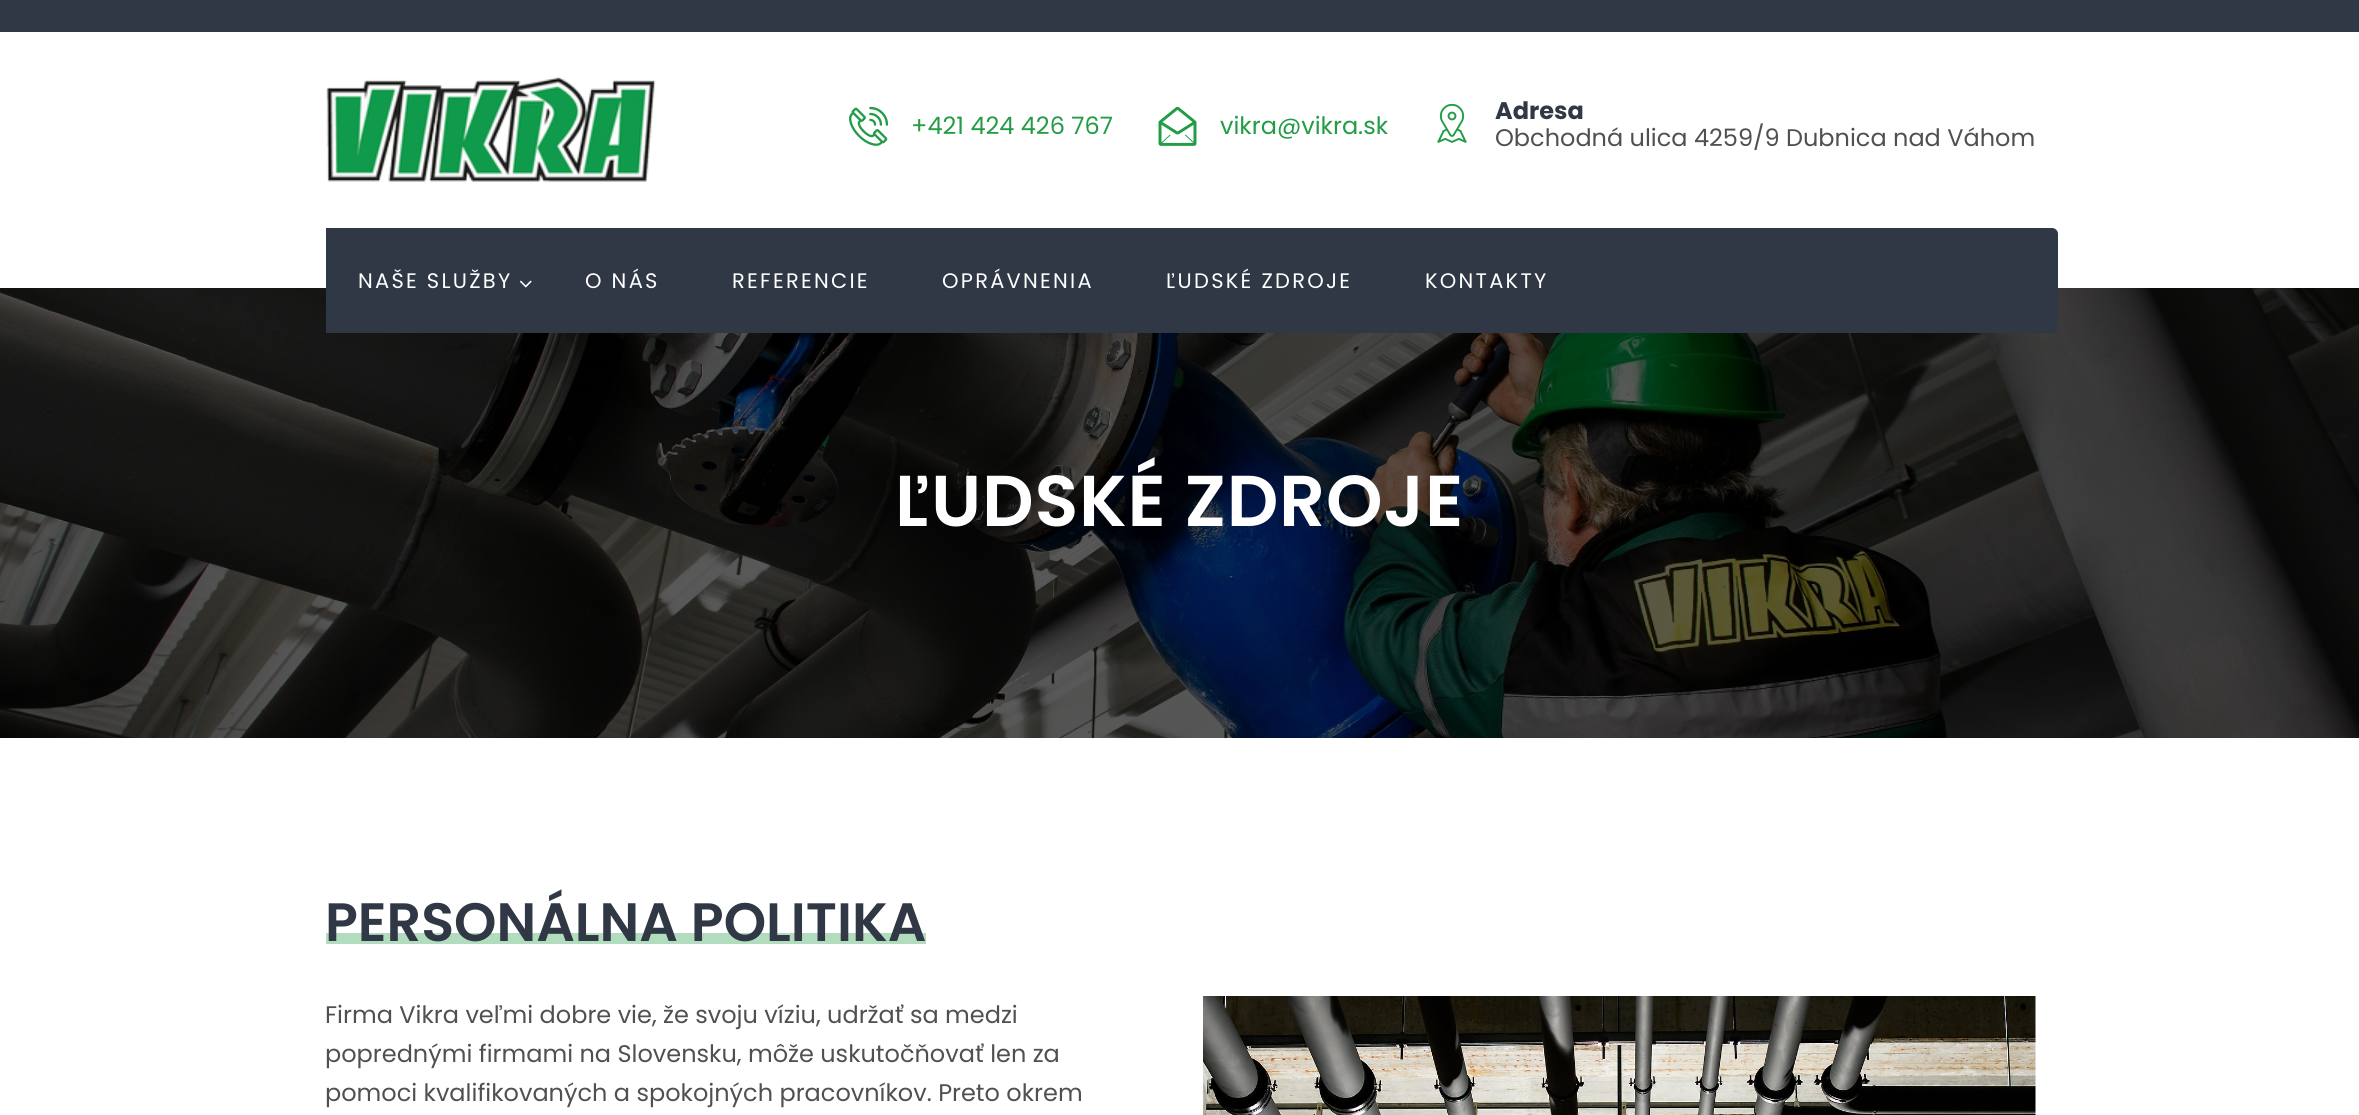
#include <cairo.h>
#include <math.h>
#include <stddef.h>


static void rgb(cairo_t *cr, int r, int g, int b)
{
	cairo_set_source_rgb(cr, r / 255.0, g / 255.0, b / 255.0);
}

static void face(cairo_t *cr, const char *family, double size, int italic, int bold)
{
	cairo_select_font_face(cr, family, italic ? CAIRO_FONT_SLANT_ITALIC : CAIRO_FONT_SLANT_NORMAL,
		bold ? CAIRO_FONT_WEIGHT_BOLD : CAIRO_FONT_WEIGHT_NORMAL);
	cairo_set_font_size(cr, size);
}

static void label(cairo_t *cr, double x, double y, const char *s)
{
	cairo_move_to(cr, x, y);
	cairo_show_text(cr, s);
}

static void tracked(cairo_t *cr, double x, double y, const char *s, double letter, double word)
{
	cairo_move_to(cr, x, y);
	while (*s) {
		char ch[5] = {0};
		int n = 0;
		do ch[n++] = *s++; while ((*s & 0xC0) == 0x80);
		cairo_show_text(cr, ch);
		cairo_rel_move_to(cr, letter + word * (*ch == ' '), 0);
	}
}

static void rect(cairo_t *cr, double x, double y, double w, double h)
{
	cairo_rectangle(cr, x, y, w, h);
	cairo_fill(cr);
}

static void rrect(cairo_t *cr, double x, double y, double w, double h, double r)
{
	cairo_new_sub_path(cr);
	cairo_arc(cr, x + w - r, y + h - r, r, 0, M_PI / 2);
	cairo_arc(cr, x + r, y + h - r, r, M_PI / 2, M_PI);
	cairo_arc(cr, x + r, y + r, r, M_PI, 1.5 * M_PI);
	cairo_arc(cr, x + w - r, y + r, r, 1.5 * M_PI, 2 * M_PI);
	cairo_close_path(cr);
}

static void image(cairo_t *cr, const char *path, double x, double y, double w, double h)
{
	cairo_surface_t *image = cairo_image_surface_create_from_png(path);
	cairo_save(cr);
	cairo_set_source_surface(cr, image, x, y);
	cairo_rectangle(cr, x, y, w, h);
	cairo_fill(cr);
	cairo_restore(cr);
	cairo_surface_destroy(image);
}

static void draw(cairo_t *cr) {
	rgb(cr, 255, 255, 255);
	cairo_paint(cr);
	rgb(cr, 48, 55, 69);
	rect(cr, 0, 0, 2359, 32);
	image(cr, "image0.png", 326, 77, 330, 105);
	image(cr, "image1.png", 849, 106, 40, 40);
	face(cr, "Poppins", 24, 0, 0);
	rgb(cr, 35, 156, 70);
	label(cr, 911, 134, "+421 424 426 767");
	image(cr, "image2.png", 1158, 106, 39, 40);
	label(cr, 1220, 134, "vikra@vikra.sk");
	image(cr, "image3.png", 1437, 103, 30, 40);
	face(cr, "Poppins", 24, 0, 1);
	rgb(cr, 48, 55, 69);
	label(cr, 1495, 119, "Adresa");
	face(cr, "Poppins", 24, 0, 0);
	rgb(cr, 80, 80, 80);
	label(cr, 1495, 146, "Obchodná ulica 4259/9 Dubnica nad Váhom");
	image(cr, "image5.png", 0, 288, 2359, 450);
	rgb(cr, 48, 55, 69);
	rect(cr, 326, 228, 6, 105);
	rrect(cr, 326, 228, 1732, 105, 6);
	cairo_fill(cr);
	face(cr, "Poppins", 21, 0, 0);
	rgb(cr, 255, 255, 255);
	tracked(cr, 358, 288, "NAŠE SLUŽBY", 2.25, 0);
	image(cr, "image4.png", 519, 280, 13, 8);
	tracked(cr, 585, 288, "O NÁS", 2.25, 0);
	tracked(cr, 732, 288, "REFERENCIE", 2.25, 0);
	tracked(cr, 942, 288, "OPRÁVNENIA", 2.25, 0);
	tracked(cr, 1166, 288, "ĽUDSKÉ ZDROJE", 2.25, 0);
	tracked(cr, 1425, 288, "KONTAKTY", 2.25, 0);
	face(cr, "Poppins SemiBold", 72, 0, 0);
	tracked(cr, 895, 526, "ĽUDSKÉ ZDROJE", 0.75, 0);
	rgb(cr, 178, 220, 190);
	rect(cr, 326, 933, 600, 11);
	face(cr, "Poppins SemiBold", 54, 0, 0);
	rgb(cr, 48, 55, 69);
	label(cr, 325, 941, "PERSONÁLNA POLITIKA");
	face(cr, "Poppins", 24, 0, 0);
	rgb(cr, 80, 80, 80);
	label(cr, 325, 1023, "Firma Vikra veľmi dobre vie, že svoju víziu, udržať sa medzi");
	label(cr, 325, 1062, "poprednými firmami na Slovensku, môže uskutočňovať len za");
	label(cr, 325, 1101, "pomoci kvalifikovaných a spokojných pracovníkov. Preto okrem");
	image(cr, "image6.png", 1203, 996, 833, 119);
}

int main(void) {
	cairo_surface_t *surface = cairo_image_surface_create(CAIRO_FORMAT_RGB24, 2359, 1115);
	cairo_t *cr = cairo_create(surface);
	cairo_font_options_t *options = cairo_font_options_create();
	cairo_font_options_set_hint_metrics(options, CAIRO_HINT_METRICS_OFF);
	cairo_font_options_set_hint_style(options, CAIRO_HINT_STYLE_NONE);
	cairo_set_font_options(cr, options);
	cairo_set_miter_limit(cr, 4);
	draw(cr);
	cairo_surface_write_to_png(surface, "render.png");
	cairo_font_options_destroy(options);
	cairo_destroy(cr);
	cairo_surface_destroy(surface);
	return 0;
}
